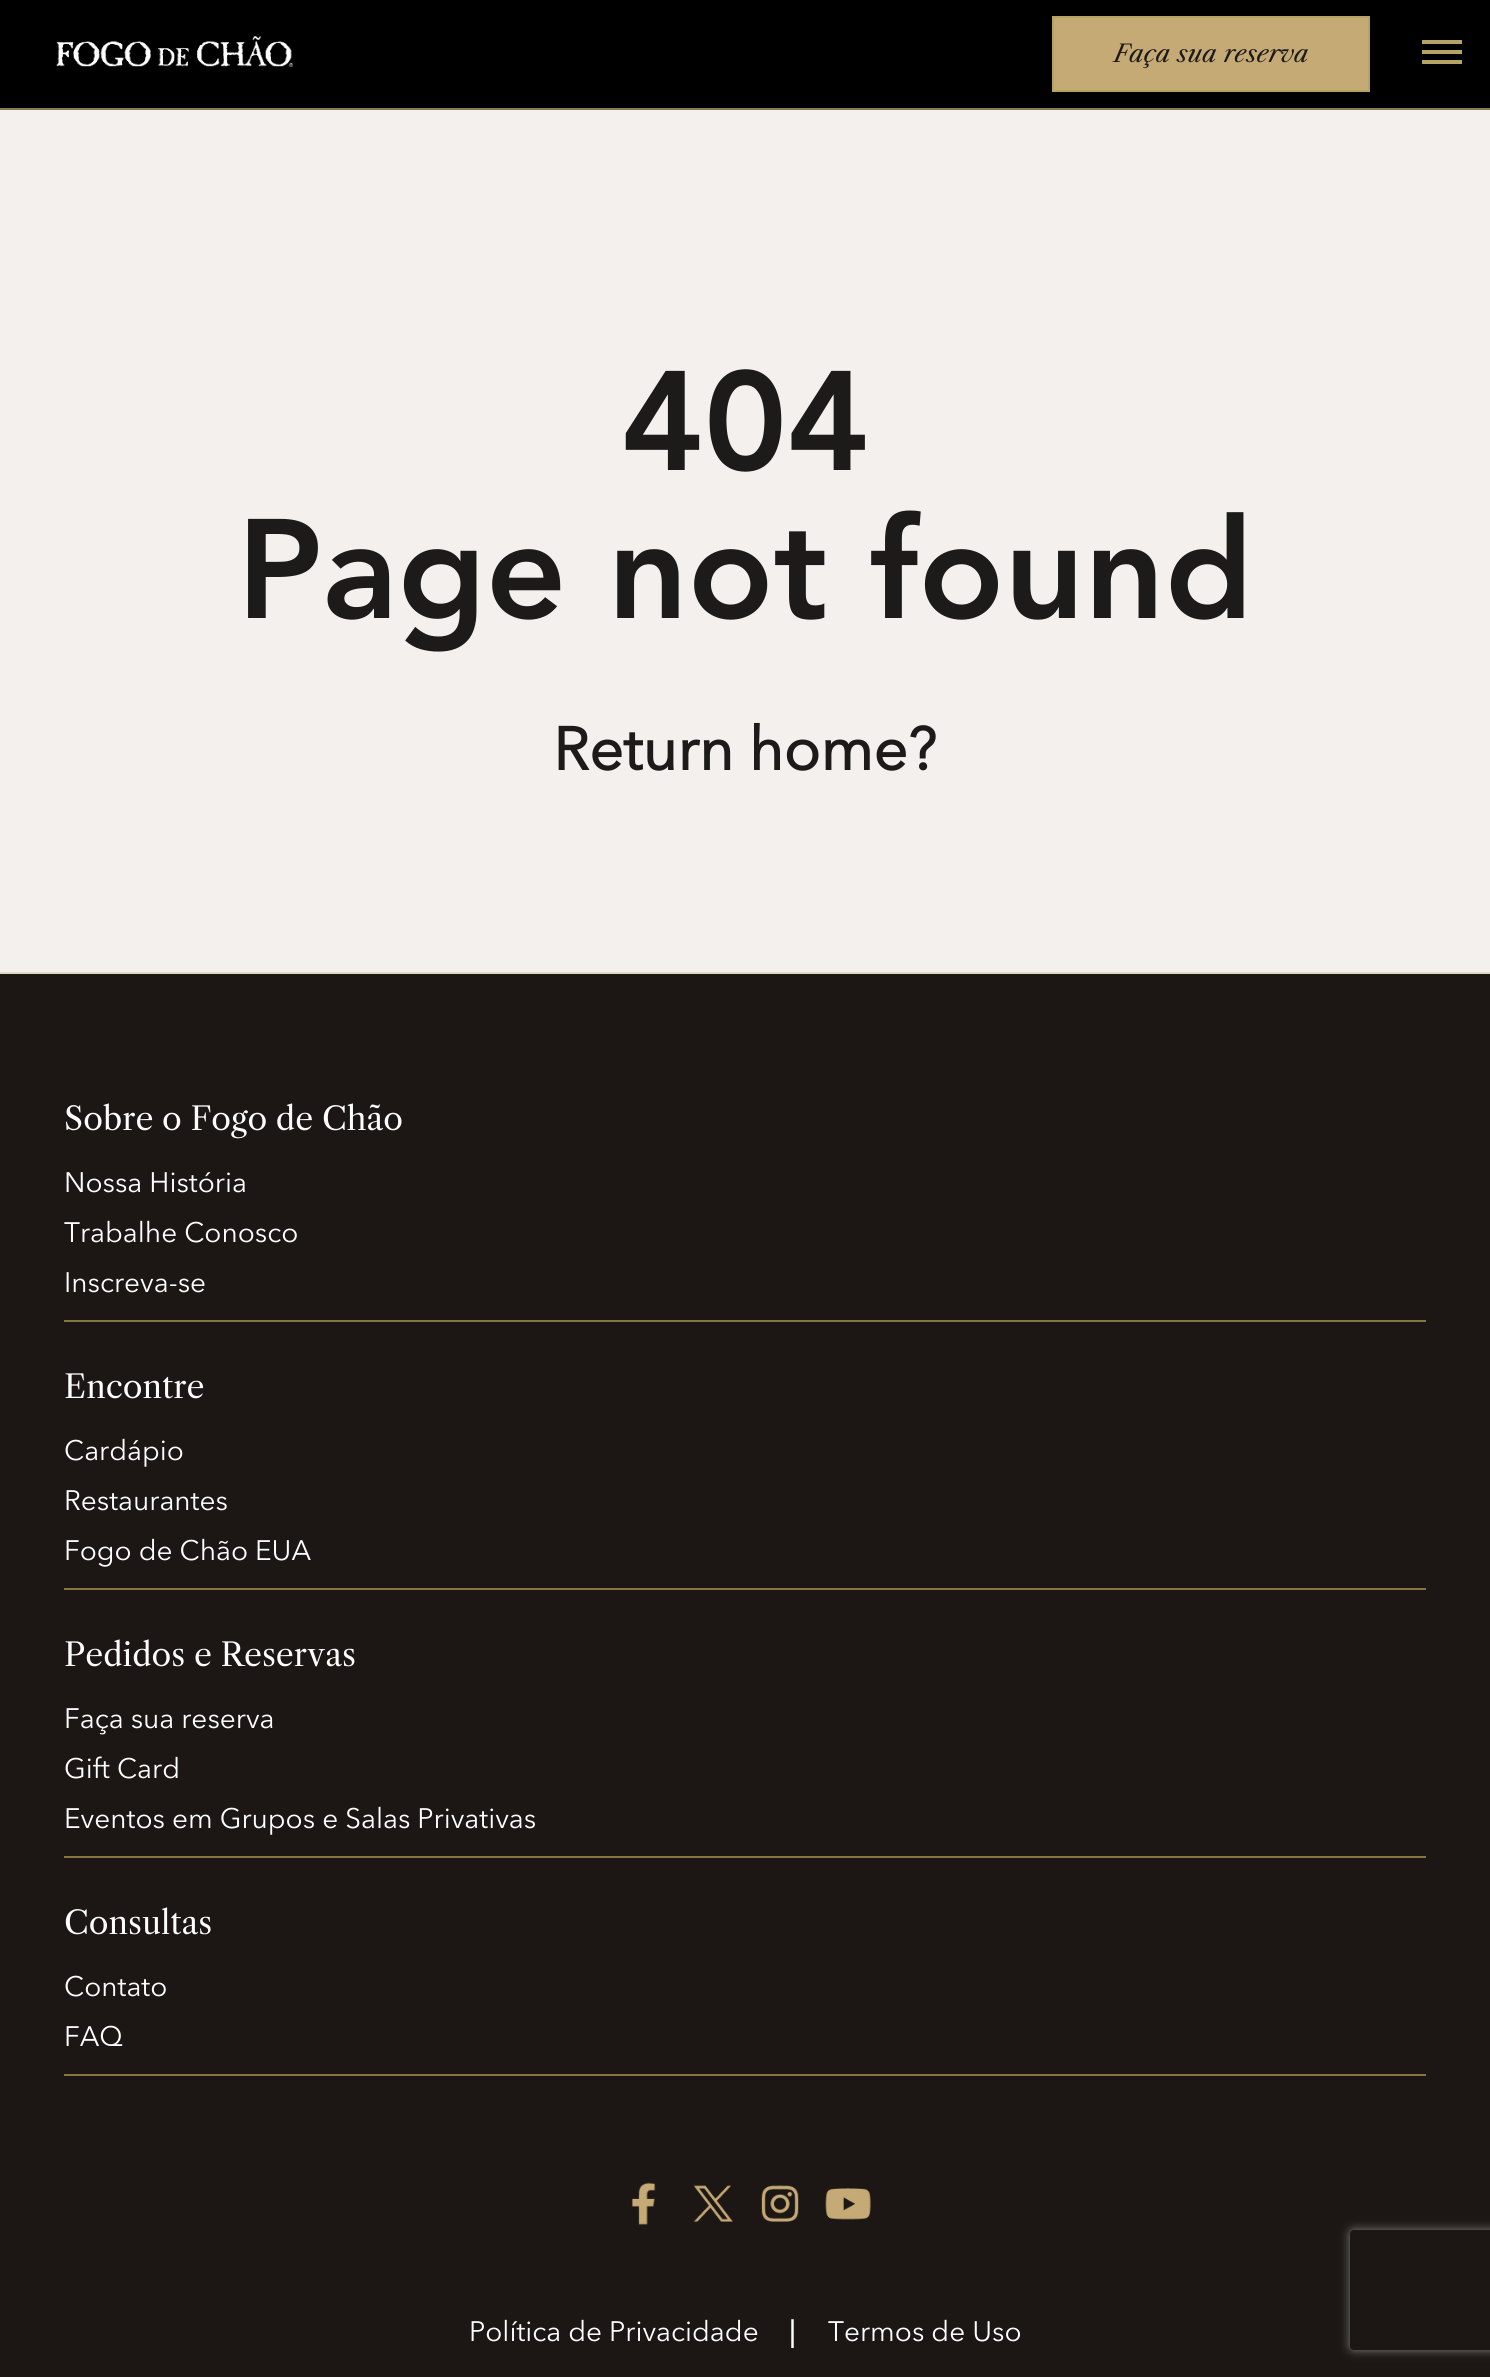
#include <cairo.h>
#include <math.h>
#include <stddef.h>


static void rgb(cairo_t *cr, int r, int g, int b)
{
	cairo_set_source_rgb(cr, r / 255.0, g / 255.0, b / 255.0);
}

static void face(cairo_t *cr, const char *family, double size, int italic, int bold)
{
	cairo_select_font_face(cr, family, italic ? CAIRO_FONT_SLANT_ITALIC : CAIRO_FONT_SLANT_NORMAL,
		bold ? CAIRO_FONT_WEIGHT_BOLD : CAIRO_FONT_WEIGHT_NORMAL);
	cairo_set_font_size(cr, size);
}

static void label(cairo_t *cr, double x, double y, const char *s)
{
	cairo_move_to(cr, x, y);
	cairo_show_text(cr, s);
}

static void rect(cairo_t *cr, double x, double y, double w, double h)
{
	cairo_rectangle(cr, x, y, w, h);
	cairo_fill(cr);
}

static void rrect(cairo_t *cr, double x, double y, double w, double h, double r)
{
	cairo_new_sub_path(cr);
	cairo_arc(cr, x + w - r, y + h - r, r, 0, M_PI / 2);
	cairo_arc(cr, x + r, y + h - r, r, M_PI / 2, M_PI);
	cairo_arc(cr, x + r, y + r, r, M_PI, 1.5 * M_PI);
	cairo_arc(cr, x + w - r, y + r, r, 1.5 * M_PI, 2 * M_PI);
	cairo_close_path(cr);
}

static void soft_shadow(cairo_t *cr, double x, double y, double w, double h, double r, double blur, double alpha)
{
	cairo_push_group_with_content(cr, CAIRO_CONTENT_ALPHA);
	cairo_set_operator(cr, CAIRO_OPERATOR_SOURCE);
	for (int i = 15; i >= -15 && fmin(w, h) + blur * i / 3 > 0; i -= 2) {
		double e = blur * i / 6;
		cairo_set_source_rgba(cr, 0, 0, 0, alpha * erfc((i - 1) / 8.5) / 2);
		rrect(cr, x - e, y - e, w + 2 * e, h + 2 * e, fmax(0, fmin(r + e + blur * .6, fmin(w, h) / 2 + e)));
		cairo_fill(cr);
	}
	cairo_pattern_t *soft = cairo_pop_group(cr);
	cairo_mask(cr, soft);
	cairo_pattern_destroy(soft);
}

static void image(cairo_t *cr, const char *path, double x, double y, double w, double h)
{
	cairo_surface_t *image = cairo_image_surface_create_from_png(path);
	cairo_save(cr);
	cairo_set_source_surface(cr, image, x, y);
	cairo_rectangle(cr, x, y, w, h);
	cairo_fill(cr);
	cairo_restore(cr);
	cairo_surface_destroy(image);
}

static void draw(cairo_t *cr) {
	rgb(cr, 244, 240, 238);
	cairo_paint(cr);
	rgb(cr, 0, 0, 0);
	rect(cr, 0, 0, 1490, 108);
	rgb(cr, 135, 122, 79);
	rect(cr, 0, 108, 1490, 2);
	image(cr, "image0.png", 56, 36, 237, 31);
	rgb(cr, 198, 170, 118);
	cairo_rectangle(cr, 1053, 17, 316, 74);
	cairo_fill_preserve(cr);
	rgb(cr, 180, 163, 101);
	cairo_stroke(cr);
	face(cr, "Libre Caslon Text", 24, 1, 0);
	rgb(cr, 28, 27, 25);
	label(cr, 1114, 62, "Faça sua reserva");
	rgb(cr, 180, 163, 101);
	rect(cr, 1422, 50, 40, 4);
	rect(cr, 1422, 40, 40, 4);
	rect(cr, 1422, 60, 40, 4);
	face(cr, "Avenir Black", 140, 0, 0);
	rgb(cr, 28, 27, 25);
	label(cr, 621, 470, "404");
	label(cr, 237, 618, "Page not found");
	face(cr, "Avenir Next", 60, 0, 1);
	label(cr, 553, 770, "Return home?");
	rgb(cr, 28, 23, 20);
	rect(cr, 0, 974, 1490, 1403);
	rgb(cr, 224, 217, 194);
	rect(cr, 0, 972, 1490, 2);
	rgb(cr, 134, 117, 66);
	rect(cr, 64, 1320, 1362, 2);
	face(cr, "Libre Caslon Text", 32, 0, 0);
	rgb(cr, 255, 255, 255);
	label(cr, 64, 1130, "Sobre o Fogo de Chão");
	face(cr, "Avenir Next", 28, 0, 0);
	label(cr, 64, 1192, "Nossa História");
	label(cr, 64, 1242, "Trabalhe Conosco");
	label(cr, 64, 1292, "Inscreva-se");
	rgb(cr, 134, 117, 66);
	rect(cr, 64, 1588, 1362, 2);
	face(cr, "Libre Caslon Text", 32, 0, 0);
	rgb(cr, 255, 255, 255);
	label(cr, 64, 1398, "Encontre");
	face(cr, "Avenir Next", 28, 0, 0);
	label(cr, 64, 1460, "Cardápio");
	label(cr, 64, 1510, "Restaurantes");
	label(cr, 64, 1560, "Fogo de Chão EUA");
	rgb(cr, 134, 117, 66);
	rect(cr, 64, 1856, 1362, 2);
	face(cr, "Libre Caslon Text", 32, 0, 0);
	rgb(cr, 255, 255, 255);
	label(cr, 64, 1666, "Pedidos e Reservas");
	face(cr, "Avenir Next", 28, 0, 0);
	label(cr, 64, 1728, "Faça sua reserva");
	label(cr, 64, 1778, "Gift Card");
	label(cr, 64, 1828, "Eventos em Grupos e Salas Privativas");
	rgb(cr, 134, 117, 66);
	rect(cr, 64, 2074, 1362, 2);
	face(cr, "Libre Caslon Text", 32, 0, 0);
	rgb(cr, 255, 255, 255);
	label(cr, 64, 1934, "Consultas");
	face(cr, "Avenir Next", 28, 0, 0);
	label(cr, 64, 1996, "Contato");
	label(cr, 64, 2046, "FAQ");
	image(cr, "image1.png", 631, 2182, 25, 43);
	image(cr, "image2.png", 693, 2185, 40, 37);
	image(cr, "image3.png", 761, 2185, 38, 37);
	image(cr, "image4.png", 825, 2188, 46, 32);
	label(cr, 469, 2341, "Política de Privacidade");
	face(cr, "Avenir Next", 28, 0, 1);
	label(cr, 789, 2341, "|");
	face(cr, "Avenir Next", 28, 0, 0);
	label(cr, 828, 2341, "Termos de Uso");
	cairo_save(cr);
	cairo_set_fill_rule(cr, CAIRO_FILL_RULE_EVEN_ODD);
	cairo_new_path(cr);
	cairo_move_to(cr, 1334, 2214);
	cairo_line_to(cr, 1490, 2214);
	cairo_line_to(cr, 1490, 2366);
	cairo_line_to(cr, 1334, 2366);
	cairo_close_path(cr);
	cairo_move_to(cr, 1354, 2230);
	cairo_line_to(cr, 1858, 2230);
	cairo_curve_to(cr, 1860, 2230, 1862, 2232, 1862, 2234);
	cairo_line_to(cr, 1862, 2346);
	cairo_curve_to(cr, 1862, 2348, 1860, 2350, 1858, 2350);
	cairo_line_to(cr, 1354, 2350);
	cairo_curve_to(cr, 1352, 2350, 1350, 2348, 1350, 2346);
	cairo_line_to(cr, 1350, 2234);
	cairo_curve_to(cr, 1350, 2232, 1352, 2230, 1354, 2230);
	cairo_close_path(cr);
	cairo_clip(cr);
	rgb(cr, 128, 128, 128);
	soft_shadow(cr, 1350, 2230, 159, 120, 4, 5, 1);
	cairo_restore(cr);
}

int main(void) {
	cairo_surface_t *surface = cairo_image_surface_create(CAIRO_FORMAT_RGB24, 1490, 2377);
	cairo_t *cr = cairo_create(surface);
	cairo_font_options_t *options = cairo_font_options_create();
	cairo_font_options_set_hint_metrics(options, CAIRO_HINT_METRICS_OFF);
	cairo_font_options_set_hint_style(options, CAIRO_HINT_STYLE_NONE);
	cairo_set_font_options(cr, options);
	cairo_set_miter_limit(cr, 4);
	draw(cr);
	cairo_surface_write_to_png(surface, "render.png");
	cairo_font_options_destroy(options);
	cairo_destroy(cr);
	cairo_surface_destroy(surface);
	return 0;
}
